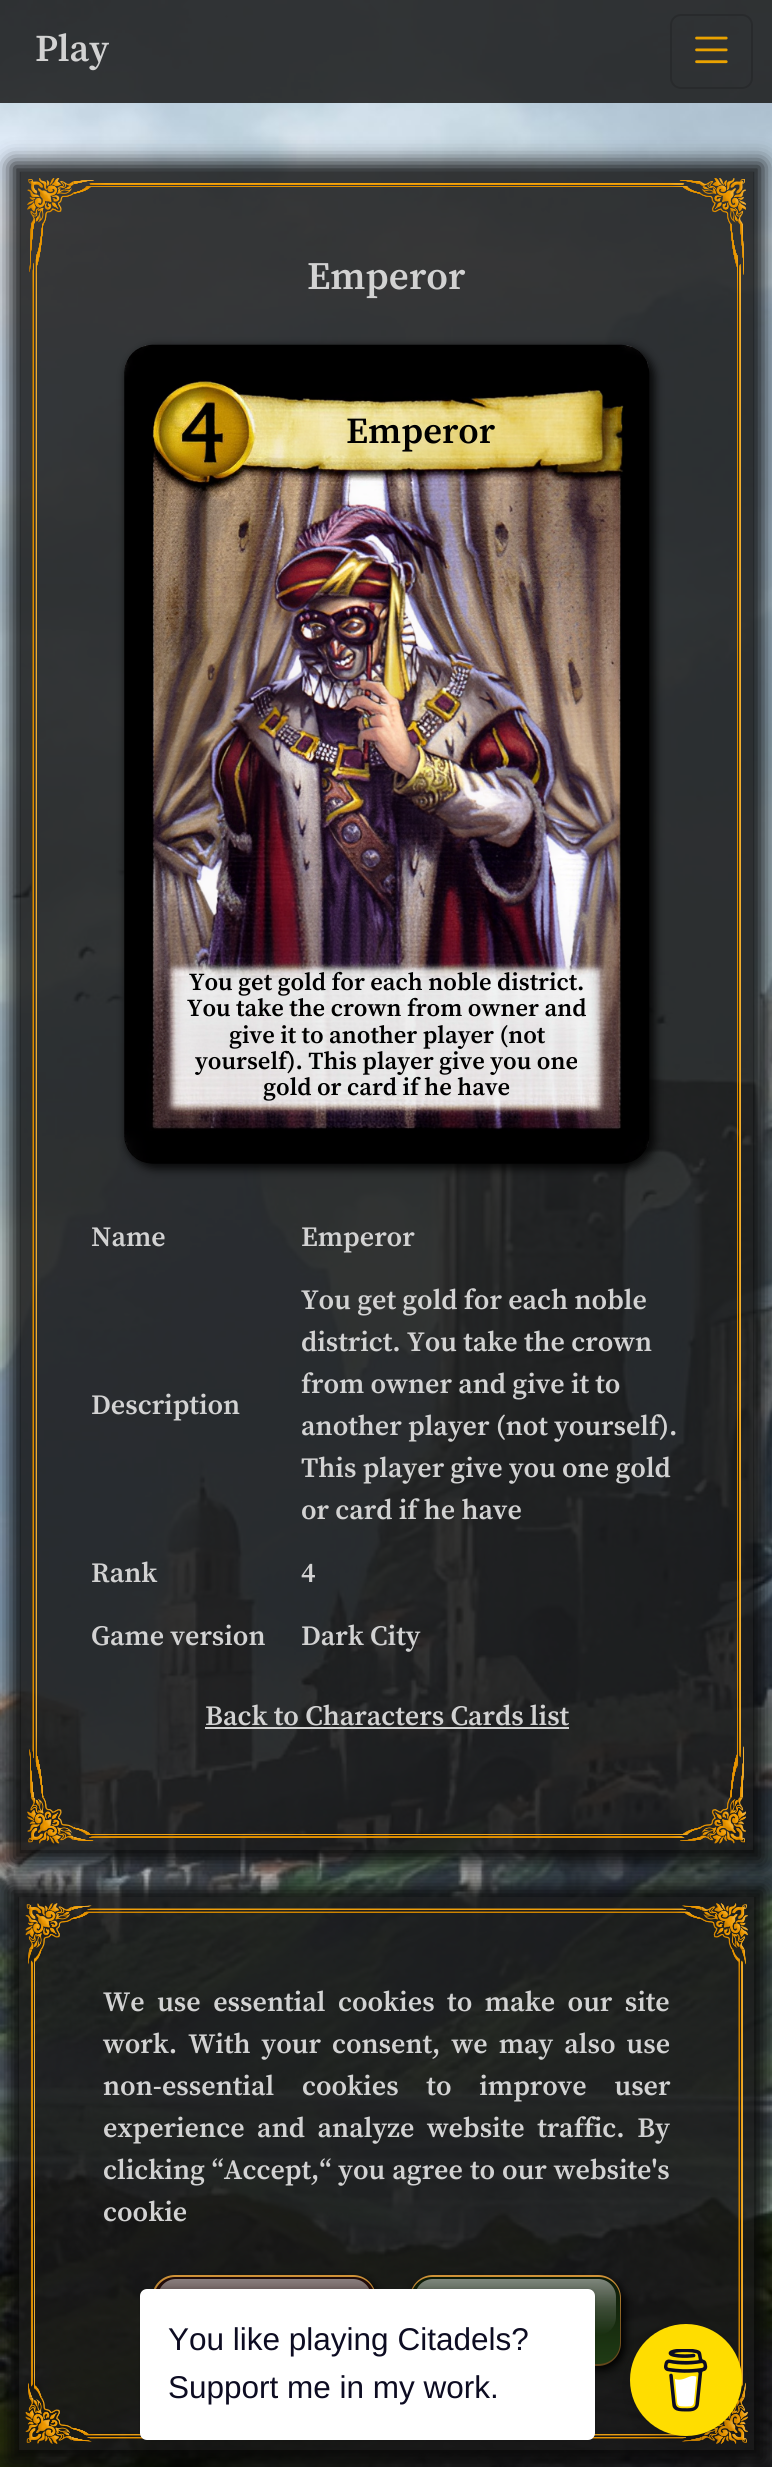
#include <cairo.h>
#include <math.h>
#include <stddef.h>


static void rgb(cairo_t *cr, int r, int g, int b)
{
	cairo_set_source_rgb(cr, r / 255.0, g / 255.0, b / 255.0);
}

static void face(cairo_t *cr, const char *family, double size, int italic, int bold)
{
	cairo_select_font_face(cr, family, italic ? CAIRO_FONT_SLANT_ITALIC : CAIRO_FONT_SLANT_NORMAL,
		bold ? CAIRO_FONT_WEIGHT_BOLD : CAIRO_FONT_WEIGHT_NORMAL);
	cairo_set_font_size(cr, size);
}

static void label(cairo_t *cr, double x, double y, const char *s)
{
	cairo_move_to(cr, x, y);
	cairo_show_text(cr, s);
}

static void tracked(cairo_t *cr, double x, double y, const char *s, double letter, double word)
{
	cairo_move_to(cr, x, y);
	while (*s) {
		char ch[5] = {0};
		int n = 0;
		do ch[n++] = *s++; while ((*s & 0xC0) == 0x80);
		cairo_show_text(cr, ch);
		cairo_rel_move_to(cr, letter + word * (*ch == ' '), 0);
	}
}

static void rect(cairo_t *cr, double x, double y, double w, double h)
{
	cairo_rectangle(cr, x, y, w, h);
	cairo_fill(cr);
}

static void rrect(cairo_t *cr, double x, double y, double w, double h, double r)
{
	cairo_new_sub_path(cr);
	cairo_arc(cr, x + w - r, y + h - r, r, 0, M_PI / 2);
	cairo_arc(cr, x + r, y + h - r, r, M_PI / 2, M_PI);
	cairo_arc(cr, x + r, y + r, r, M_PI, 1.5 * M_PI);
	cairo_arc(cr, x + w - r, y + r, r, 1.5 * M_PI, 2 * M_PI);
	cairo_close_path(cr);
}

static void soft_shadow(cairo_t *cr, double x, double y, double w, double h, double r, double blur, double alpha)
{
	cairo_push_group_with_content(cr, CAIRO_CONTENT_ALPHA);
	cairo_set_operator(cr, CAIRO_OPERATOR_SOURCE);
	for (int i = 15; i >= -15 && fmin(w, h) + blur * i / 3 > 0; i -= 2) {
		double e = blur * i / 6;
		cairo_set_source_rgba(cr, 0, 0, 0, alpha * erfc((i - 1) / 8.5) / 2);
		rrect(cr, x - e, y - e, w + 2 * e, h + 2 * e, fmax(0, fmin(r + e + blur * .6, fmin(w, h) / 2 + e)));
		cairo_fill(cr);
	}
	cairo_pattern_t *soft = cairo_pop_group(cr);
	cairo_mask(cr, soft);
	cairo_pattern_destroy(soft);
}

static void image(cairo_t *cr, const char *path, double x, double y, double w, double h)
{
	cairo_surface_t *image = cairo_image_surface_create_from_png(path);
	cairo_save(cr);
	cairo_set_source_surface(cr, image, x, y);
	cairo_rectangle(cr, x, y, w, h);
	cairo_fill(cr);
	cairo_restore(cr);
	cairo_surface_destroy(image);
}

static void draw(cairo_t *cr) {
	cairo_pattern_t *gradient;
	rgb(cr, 255, 255, 255);
	cairo_paint(cr);
	image(cr, "image0.png", 0, 0, 772, 2467);
	cairo_set_source_rgba(cr, 0.094, 0.094, 0.094, 0.85);
	rect(cr, 0, 0, 772, 103);
	face(cr, "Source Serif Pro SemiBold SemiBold", 38, 0, 0);
	rgb(cr, 210, 210, 210);
	label(cr, 35, 61, "Play");
	rrect(cr, 671, 15, 81, 73, 10);
	rgb(cr, 40, 42, 44);
	cairo_stroke(cr);
	image(cr, "image1.png", 695, 36, 33, 28);
	cairo_save(cr);
	cairo_set_fill_rule(cr, CAIRO_FILL_RULE_EVEN_ODD);
	cairo_new_path(cr);
	cairo_move_to(cr, 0, 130);
	cairo_line_to(cr, 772, 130);
	cairo_line_to(cr, 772, 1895);
	cairo_line_to(cr, 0, 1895);
	cairo_close_path(cr);
	cairo_move_to(cr, 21, 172);
	cairo_line_to(cr, 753, 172);
	cairo_line_to(cr, 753, 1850);
	cairo_line_to(cr, 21, 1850);
	cairo_close_path(cr);
	cairo_clip(cr);
	rgb(cr, 8, 8, 8);
	soft_shadow(cr, 11, 163, 752, 1699, 0, 10.5, 0.98);
	cairo_restore(cr);
	cairo_set_source_rgba(cr, 0.094, 0.094, 0.094, 0.85);
	rect(cr, 21, 172, 732, 1678);
	image(cr, "image2.png", 27, 178, 720, 1666);
	face(cr, "Source Serif Pro SemiBold SemiBold", 39, 0, 0);
	rgb(cr, 210, 210, 210);
	label(cr, 307, 289, "Emperor");
	rgb(cr, 0, 0, 0);
	soft_shadow(cr, 126, 347, 529, 822, 30, 4.5, 0.8);
	image(cr, "image3.png", 124, 344, 526, 820);
	face(cr, "Source Serif Pro SemiBold SemiBold", 36.75, 0, 0);
	rgb(cr, 0, 0, 0);
	label(cr, 346, 443, "Emperor");
	face(cr, "Source Serif Pro SemiBold SemiBold", 24.5, 0, 0);
	label(cr, 189, 990, "You get gold for each noble district.");
	label(cr, 187, 1016, "You take the crown from owner and");
	label(cr, 229, 1043, "give it to another player (not");
	label(cr, 195, 1069, "yourself). This player give you one");
	label(cr, 263, 1095, "gold or card if he have");
	face(cr, "Source Serif Pro SemiBold SemiBold", 28, 0, 0);
	rgb(cr, 210, 210, 210);
	label(cr, 91, 1246, "Name");
	label(cr, 301, 1246, "Emperor");
	label(cr, 91, 1414, "Description");
	label(cr, 301, 1309, "You get gold for each noble");
	label(cr, 301, 1351, "district. You take the crown");
	label(cr, 301, 1393, "from owner and give it to");
	label(cr, 301, 1435, "another player (not yourself).");
	label(cr, 301, 1477, "This player give you one gold");
	label(cr, 301, 1519, "or card if he have");
	label(cr, 91, 1582, "Rank");
	label(cr, 301, 1582, "4");
	label(cr, 91, 1645, "Game version");
	label(cr, 301, 1645, "Dark City");
	label(cr, 205, 1725, "Back to Characters Cards list");
	rect(cr, 205, 1727, 364, 2);
	cairo_save(cr);
	cairo_set_fill_rule(cr, CAIRO_FILL_RULE_EVEN_ODD);
	cairo_new_path(cr);
	cairo_move_to(cr, 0, 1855);
	cairo_line_to(cr, 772, 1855);
	cairo_line_to(cr, 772, 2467);
	cairo_line_to(cr, 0, 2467);
	cairo_close_path(cr);
	cairo_move_to(cr, 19, 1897);
	cairo_line_to(cr, 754, 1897);
	cairo_line_to(cr, 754, 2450);
	cairo_line_to(cr, 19, 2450);
	cairo_close_path(cr);
	cairo_clip(cr);
	rgb(cr, 8, 8, 8);
	soft_shadow(cr, 9, 1888, 756, 574, 0, 10.5, 0.98);
	cairo_restore(cr);
	cairo_set_source_rgba(cr, 0.094, 0.094, 0.094, 0.85);
	rect(cr, 19, 1897, 735, 553);
	image(cr, "image4.png", 25, 1903, 723, 541);
	rgb(cr, 210, 210, 210);
	tracked(cr, 103, 2011, "We use essential cookies to make our site", 0, 6.25);
	tracked(cr, 103, 2053, "work. With your consent, we may also use", 0, 4.75);
	tracked(cr, 103, 2095, "non-essential cookies to improve user", 0, 21.5);
	tracked(cr, 103, 2137, "experience and analyze website traffic. By", 0, 6.25);
	tracked(cr, 103, 2179, "clicking “Accept,“ you agree to our website's", 0, 0.75);
	label(cr, 103, 2221, "cookie");
	rgb(cr, 0, 0, 0);
	soft_shadow(cr, 156, 2279, 224, 91, 23, 4.5, 1);
	gradient = cairo_pattern_create_linear(264, 2275, 264, 2366);
	cairo_pattern_add_color_stop_rgba(gradient, 0, 0.82, 0.58, 0.224, 1);
	cairo_pattern_add_color_stop_rgba(gradient, 0.5, 0.502, 0.353, 0.137, 1);
	cairo_pattern_add_color_stop_rgba(gradient, 1, 0.392, 0.275, 0.106, 1);
	cairo_set_source(cr, gradient);
	cairo_pattern_destroy(gradient);
	rrect(cr, 152, 2275, 224, 91, 23);
	cairo_fill(cr);
	gradient = cairo_pattern_create_linear(264, 2277, 264, 2364);
	cairo_pattern_add_color_stop_rgba(gradient, 0, 0.122, 0.043, 0.035, 1);
	cairo_pattern_add_color_stop_rgba(gradient, 1, 0.231, 0.082, 0.082, 1);
	cairo_set_source(cr, gradient);
	cairo_pattern_destroy(gradient);
	rrect(cr, 154, 2277, 221, 87, 21);
	cairo_fill(cr);
	gradient = cairo_pattern_create_linear(264, 2279, 264, 2335);
	cairo_pattern_add_color_stop_rgba(gradient, 0, 1, 1, 1, 0.47);
	cairo_pattern_add_color_stop_rgba(gradient, 0.5, 1, 1, 1, 0.18);
	cairo_pattern_add_color_stop_rgba(gradient, 1, 1, 1, 1, 0);
	cairo_set_source(cr, gradient);
	cairo_pattern_destroy(gradient);
	rrect(cr, 158, 2279, 213, 56, 18);
	cairo_fill(cr);
	rgb(cr, 0, 0, 0);
	soft_shadow(cr, 413, 2279, 212, 91, 23, 4.5, 1);
	gradient = cairo_pattern_create_linear(515, 2275, 515, 2366);
	cairo_pattern_add_color_stop_rgba(gradient, 0, 0.82, 0.58, 0.224, 1);
	cairo_pattern_add_color_stop_rgba(gradient, 0.5, 0.502, 0.353, 0.137, 1);
	cairo_pattern_add_color_stop_rgba(gradient, 1, 0.392, 0.275, 0.106, 1);
	cairo_set_source(cr, gradient);
	cairo_pattern_destroy(gradient);
	rrect(cr, 410, 2275, 211, 91, 23);
	cairo_fill(cr);
	gradient = cairo_pattern_create_linear(515, 2277, 515, 2364);
	cairo_pattern_add_color_stop_rgba(gradient, 0, 0.047, 0.102, 0.027, 1);
	cairo_pattern_add_color_stop_rgba(gradient, 1, 0.125, 0.231, 0.082, 1);
	cairo_set_source(cr, gradient);
	cairo_pattern_destroy(gradient);
	rrect(cr, 411, 2277, 209, 87, 21);
	cairo_fill(cr);
	gradient = cairo_pattern_create_linear(515, 2279, 515, 2335);
	cairo_pattern_add_color_stop_rgba(gradient, 0, 1, 1, 1, 0.47);
	cairo_pattern_add_color_stop_rgba(gradient, 0.5, 1, 1, 1, 0.18);
	cairo_pattern_add_color_stop_rgba(gradient, 1, 1, 1, 1, 0);
	cairo_set_source(cr, gradient);
	cairo_pattern_destroy(gradient);
	rrect(cr, 415, 2279, 201, 56, 18);
	cairo_fill(cr);
	rgb(cr, 0, 0, 0);
	soft_shadow(cr, 140, 2289, 455, 151, 7, 2, 0.15);
	rgb(cr, 255, 255, 255);
	rrect(cr, 140, 2289, 455, 151, 7);
	cairo_fill(cr);
	face(cr, "Liberation Sans", 31.5, 0, 0);
	rgb(cr, 13, 12, 34);
	label(cr, 168, 2350, "You like playing Citadels?");
	label(cr, 168, 2398, "Support me in my work.");
	rgb(cr, 0, 0, 0);
	soft_shadow(cr, 630, 2331, 112, 112, 56, 7, 0.15);
	rgb(cr, 255, 221, 0);
	cairo_arc(cr, 686, 2380, 56, 0, 2 * M_PI);
	cairo_fill(cr);
	image(cr, "image5.png", 664, 2349, 44, 63);
}

int main(void) {
	cairo_surface_t *surface = cairo_image_surface_create(CAIRO_FORMAT_RGB24, 772, 2467);
	cairo_t *cr = cairo_create(surface);
	cairo_font_options_t *options = cairo_font_options_create();
	cairo_font_options_set_hint_metrics(options, CAIRO_HINT_METRICS_OFF);
	cairo_font_options_set_hint_style(options, CAIRO_HINT_STYLE_NONE);
	cairo_set_font_options(cr, options);
	cairo_set_miter_limit(cr, 4);
	draw(cr);
	cairo_surface_write_to_png(surface, "render.png");
	cairo_font_options_destroy(options);
	cairo_destroy(cr);
	cairo_surface_destroy(surface);
	return 0;
}
